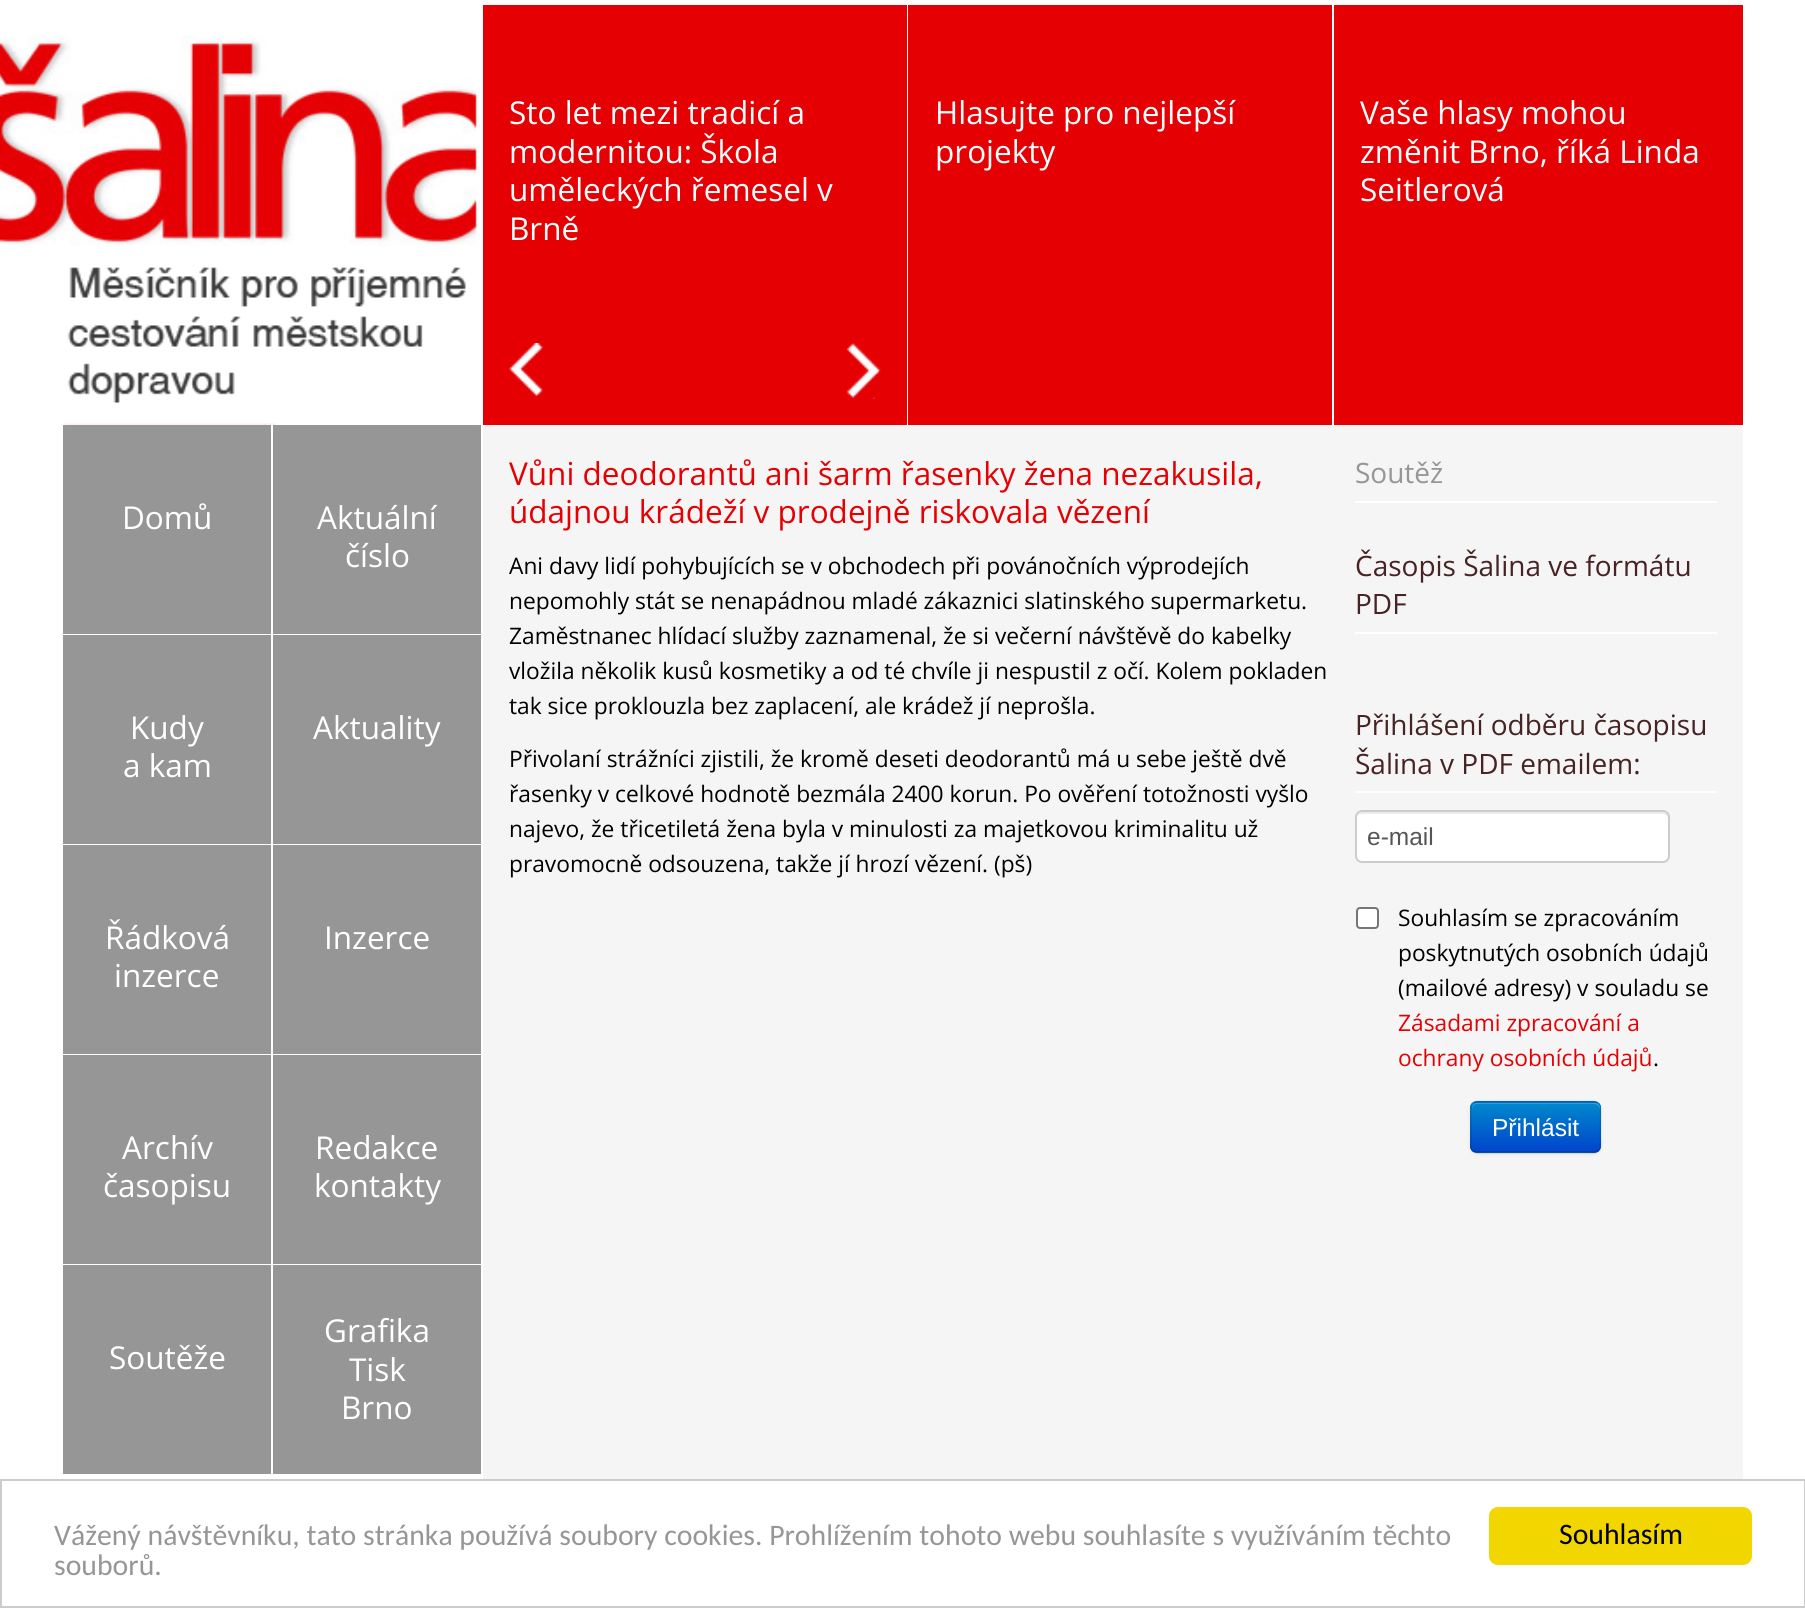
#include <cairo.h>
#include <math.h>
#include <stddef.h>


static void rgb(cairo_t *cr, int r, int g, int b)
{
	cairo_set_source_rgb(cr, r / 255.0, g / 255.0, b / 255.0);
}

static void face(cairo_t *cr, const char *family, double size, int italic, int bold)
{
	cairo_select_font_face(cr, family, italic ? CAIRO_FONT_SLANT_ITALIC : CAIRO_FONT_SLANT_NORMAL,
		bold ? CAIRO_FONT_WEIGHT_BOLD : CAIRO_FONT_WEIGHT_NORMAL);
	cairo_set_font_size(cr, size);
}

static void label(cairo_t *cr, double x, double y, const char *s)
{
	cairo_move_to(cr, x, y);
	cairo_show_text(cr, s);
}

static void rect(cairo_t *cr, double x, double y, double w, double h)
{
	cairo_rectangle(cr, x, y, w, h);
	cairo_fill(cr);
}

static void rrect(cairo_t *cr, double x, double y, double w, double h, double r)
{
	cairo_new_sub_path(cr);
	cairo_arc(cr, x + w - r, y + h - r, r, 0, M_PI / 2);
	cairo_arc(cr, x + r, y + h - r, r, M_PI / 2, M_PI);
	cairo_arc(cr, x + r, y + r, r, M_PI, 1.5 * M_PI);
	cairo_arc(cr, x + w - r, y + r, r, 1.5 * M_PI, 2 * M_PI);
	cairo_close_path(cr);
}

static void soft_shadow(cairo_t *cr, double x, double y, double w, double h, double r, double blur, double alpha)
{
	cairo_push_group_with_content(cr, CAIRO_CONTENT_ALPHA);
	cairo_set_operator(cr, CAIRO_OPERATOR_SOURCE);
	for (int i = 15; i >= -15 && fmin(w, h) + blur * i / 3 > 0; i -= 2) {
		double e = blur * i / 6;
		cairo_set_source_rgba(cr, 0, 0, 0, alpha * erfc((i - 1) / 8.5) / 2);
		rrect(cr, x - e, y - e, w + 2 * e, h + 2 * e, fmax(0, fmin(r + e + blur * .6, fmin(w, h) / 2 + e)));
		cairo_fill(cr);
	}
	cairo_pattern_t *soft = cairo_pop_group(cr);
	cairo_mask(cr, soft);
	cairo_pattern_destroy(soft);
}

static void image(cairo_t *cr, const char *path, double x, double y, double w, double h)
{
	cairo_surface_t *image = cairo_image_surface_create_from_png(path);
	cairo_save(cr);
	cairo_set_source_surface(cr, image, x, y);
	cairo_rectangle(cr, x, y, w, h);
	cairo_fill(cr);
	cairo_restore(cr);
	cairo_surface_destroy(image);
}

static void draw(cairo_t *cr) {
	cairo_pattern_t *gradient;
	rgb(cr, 255, 255, 255);
	cairo_paint(cr);
	image(cr, "image0.png", 0, 35, 481, 391);
	rgb(cr, 229, 0, 3);
	rect(cr, 483, 5, 424, 420);
	face(cr, "Open Sans", 31.5, 0, 0);
	rgb(cr, 255, 255, 255);
	label(cr, 509, 124, "Sto let mezi tradicí a");
	label(cr, 509, 163, "modernitou: Škola");
	label(cr, 509, 201, "uměleckých řemesel v");
	label(cr, 509, 240, "Brně");
	rgb(cr, 229, 0, 3);
	rect(cr, 908, 5, 424, 420);
	rgb(cr, 255, 255, 255);
	label(cr, 935, 124, "Hlasujte pro nejlepší");
	label(cr, 935, 163, "projekty");
	rgb(cr, 229, 0, 3);
	rect(cr, 1334, 5, 409, 420);
	rgb(cr, 255, 255, 255);
	label(cr, 1360, 124, "Vaše hlasy mohou");
	label(cr, 1360, 163, "změnit Brno, říká Linda");
	label(cr, 1360, 201, "Seitlerová");
	image(cr, "image1.png", 509, 343, 34, 53);
	image(cr, "image2.png", 847, 343, 34, 56);
	rgb(cr, 150, 150, 150);
	rect(cr, 63, 425, 208, 209);
	rgb(cr, 255, 255, 255);
	rect(cr, 271, 425, 2, 1);
	label(cr, 122, 529, "Domů");
	rgb(cr, 150, 150, 150);
	rect(cr, 273, 425, 208, 209);
	rgb(cr, 255, 255, 255);
	label(cr, 317, 529, "Aktuální");
	label(cr, 345, 567, "číslo");
	rgb(cr, 150, 150, 150);
	rect(cr, 63, 635, 208, 209);
	rgb(cr, 255, 255, 255);
	label(cr, 130, 739, "Kudy");
	label(cr, 123, 777, "a kam");
	rgb(cr, 150, 150, 150);
	rect(cr, 273, 635, 208, 209);
	rgb(cr, 255, 255, 255);
	label(cr, 313, 739, "Aktuality");
	rgb(cr, 150, 150, 150);
	rect(cr, 63, 845, 208, 209);
	rgb(cr, 255, 255, 255);
	label(cr, 105, 949, "Řádková");
	label(cr, 114, 987, "inzerce");
	rgb(cr, 150, 150, 150);
	rect(cr, 273, 845, 208, 209);
	rgb(cr, 255, 255, 255);
	label(cr, 324, 949, "Inzerce");
	rgb(cr, 150, 150, 150);
	rect(cr, 63, 1055, 208, 209);
	rgb(cr, 255, 255, 255);
	label(cr, 122, 1159, "Archív");
	label(cr, 103, 1197, "časopisu");
	rgb(cr, 150, 150, 150);
	rect(cr, 273, 1055, 208, 209);
	rgb(cr, 255, 255, 255);
	label(cr, 315, 1159, "Redakce");
	label(cr, 314, 1197, "kontakty");
	rgb(cr, 150, 150, 150);
	rect(cr, 63, 1265, 208, 209);
	rgb(cr, 255, 255, 255);
	label(cr, 109, 1369, "Soutěže");
	rgb(cr, 150, 150, 150);
	rect(cr, 273, 1265, 208, 209);
	rgb(cr, 255, 255, 255);
	label(cr, 324, 1342, "Grafika");
	label(cr, 349, 1381, "Tisk");
	label(cr, 341, 1419, "Brno");
	rgb(cr, 245, 245, 245);
	rect(cr, 483, 425, 1260, 1054);
	rgb(cr, 229, 0, 3);
	label(cr, 509, 485, "Vůni deodorantů ani šarm řasenky žena nezakusila,");
	label(cr, 509, 523, "údajnou krádeží v prodejně riskovala vězení");
	face(cr, "Open Sans", 22.75, 0, 0);
	rgb(cr, 0, 0, 0);
	label(cr, 509, 574, "Ani davy lidí pohybujících se v obchodech při povánočních výprodejích");
	label(cr, 509, 609, "nepomohly stát se nenapádnou mladé zákaznici slatinského supermarketu.");
	label(cr, 509, 644, "Zaměstnanec hlídací služby zaznamenal, že si večerní návštěvě do kabelky");
	label(cr, 509, 679, "vložila několik kusů kosmetiky a od té chvíle ji nespustil z očí. Kolem pokladen");
	label(cr, 509, 714, "tak sice proklouzla bez zaplacení, ale krádež jí neprošla.");
	label(cr, 509, 767, "Přivolaní strážníci zjistili, že kromě deseti deodorantů má u sebe ještě dvě");
	label(cr, 509, 802, "řasenky v celkové hodnotě bezmála 2400 korun. Po ověření totožnosti vyšlo");
	label(cr, 509, 837, "najevo, že třicetiletá žena byla v minulosti za majetkovou kriminalitu už");
	label(cr, 509, 872, "pravomocně odsouzena, takže jí hrozí vězení. (pš)");
	rgb(cr, 255, 255, 255);
	rect(cr, 1355, 501, 362, 2);
	face(cr, "Open Sans", 28, 0, 0);
	rgb(cr, 150, 150, 150);
	label(cr, 1355, 483, "Soutěž");
	rgb(cr, 255, 255, 255);
	rect(cr, 1355, 632, 362, 2);
	rgb(cr, 71, 35, 35);
	label(cr, 1355, 576, "Časopis Šalina ve formátu");
	label(cr, 1355, 614, "PDF");
	rgb(cr, 255, 255, 255);
	rect(cr, 1355, 791, 362, 2);
	rgb(cr, 71, 35, 35);
	label(cr, 1355, 735, "Přihlášení odběru časopisu");
	label(cr, 1355, 774, "Šalina v PDF emailem:");
	rgb(cr, 255, 255, 255);
	rrect(cr, 1355, 810, 315, 53, 7);
	cairo_fill(cr);
	rgb(cr, 236, 236, 236);
	cairo_new_path(cr);
	cairo_move_to(cr, 1362, 814);
	cairo_line_to(cr, 1662, 814);
	cairo_curve_to(cr, 1665, 814, 1668, 816, 1668, 819);
	cairo_line_to(cr, 1668, 817);
	cairo_curve_to(cr, 1668, 814, 1666, 812, 1663, 812);
	cairo_line_to(cr, 1361, 812);
	cairo_curve_to(cr, 1358, 812, 1356, 814, 1356, 817);
	cairo_line_to(cr, 1356, 819);
	cairo_curve_to(cr, 1356, 816, 1359, 814, 1362, 814);
	cairo_close_path(cr);
	cairo_fill(cr);
	rrect(cr, 1356, 811, 313, 51, 6);
	rgb(cr, 204, 204, 204);
	cairo_stroke(cr);
	face(cr, "Liberation Sans", 24.5, 0, 0);
	rgb(cr, 85, 85, 85);
	label(cr, 1367, 845, "e-mail");
	rgb(cr, 255, 255, 255);
	rrect(cr, 1357, 908, 21, 20, 3);
	cairo_fill_preserve(cr);
	rgb(cr, 118, 118, 118);
	cairo_stroke(cr);
	face(cr, "Open Sans", 22.75, 0, 0);
	rgb(cr, 0, 0, 0);
	label(cr, 1398, 926, "Souhlasím se zpracováním");
	label(cr, 1398, 961, "poskytnutých osobních údajů");
	label(cr, 1398, 996, "(mailové adresy) v souladu se");
	rgb(cr, 229, 0, 3);
	label(cr, 1398, 1031, "Zásadami zpracování a");
	label(cr, 1398, 1066, "ochrany osobních údajů");
	rgb(cr, 0, 0, 0);
	label(cr, 1653, 1066, ".");
	rgb(cr, 0, 0, 0);
	soft_shadow(cr, 1470, 1103, 131, 52, 7, 2, 0.05);
	rgb(cr, 0, 109, 204);
	rrect(cr, 1470, 1101, 131, 52, 7);
	cairo_fill(cr);
	cairo_save(cr);
	rrect(cr, 1470, 1101, 131, 52, 7);
	cairo_clip(cr);
	gradient = cairo_pattern_create_linear(1536, 1103, 1536, 1152);
	cairo_pattern_add_color_stop_rgba(gradient, 0, 0, 0.533, 0.8, 1);
	cairo_pattern_add_color_stop_rgba(gradient, 1, 0, 0.267, 0.8, 1);
	cairo_set_source(cr, gradient);
	cairo_pattern_destroy(gradient);
	rect(cr, 1470, 1103, 131, 49);
	cairo_restore(cr);
	cairo_set_source_rgba(cr, 1, 1, 1, 0.2);
	cairo_new_path(cr);
	cairo_move_to(cr, 1477, 1104);
	cairo_line_to(cr, 1594, 1104);
	cairo_curve_to(cr, 1597, 1104, 1600, 1107, 1600, 1110);
	cairo_line_to(cr, 1600, 1108);
	cairo_curve_to(cr, 1600, 1105, 1598, 1103, 1595, 1103);
	cairo_line_to(cr, 1477, 1103);
	cairo_curve_to(cr, 1474, 1103, 1472, 1105, 1472, 1108);
	cairo_line_to(cr, 1472, 1110);
	cairo_curve_to(cr, 1472, 1107, 1474, 1104, 1477, 1104);
	cairo_close_path(cr);
	cairo_fill(cr);
	cairo_new_path(cr);
	cairo_move_to(cr, 1598.5, 1150.5);
	cairo_curve_to(cr, 1597.5, 1151.5, 1596, 1152.5, 1594, 1152.5);
	cairo_line_to(cr, 1477, 1152.5);
	cairo_curve_to(cr, 1475.5, 1152.5, 1474, 1151.5, 1472.5, 1150.5);
	cairo_set_source_rgba(cr, 0, 0, 0, 0.25);
	cairo_set_line_width(cr, 1.8);
	cairo_stroke(cr);
	cairo_new_path(cr);
	cairo_move_to(cr, 1472.5, 1150.5);
	cairo_curve_to(cr, 1470, 1148, 1471, 1143, 1471, 1140);
	cairo_line_to(cr, 1471, 1127);
	cairo_curve_to(cr, 1471, 1098, 1466.5, 1101.5, 1496.5, 1101.5);
	cairo_line_to(cr, 1574.5, 1101.5);
	cairo_curve_to(cr, 1604.5, 1101.5, 1600.5, 1098, 1600.5, 1127);
	cairo_line_to(cr, 1600.5, 1140);
	cairo_curve_to(cr, 1600.5, 1143, 1601.5, 1148, 1598.5, 1150.5);
	cairo_set_source_rgba(cr, 0, 0, 0, 0.1);
	cairo_stroke(cr);
	face(cr, "Liberation Sans", 24.5, 0, 0);
	rgb(cr, 255, 255, 255);
	label(cr, 1492, 1136, "Přihlásit");
	cairo_rectangle(cr, 1, 1480, 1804, 127);
	rgb(cr, 204, 204, 204);
	cairo_set_line_width(cr, 2);
	cairo_stroke(cr);
	face(cr, "Carlito", 29.75, 0, 0);
	rgb(cr, 150, 150, 150);
	label(cr, 54, 1545, "Vážený návštěvníku, tato stránka používá soubory cookies. Prohlížením tohoto webu souhlasíte s využíváním těchto");
	label(cr, 54, 1575, "souborů.");
	rgb(cr, 241, 214, 0);
	rrect(cr, 1489, 1507, 263, 58, 9);
	cairo_fill(cr);
	rgb(cr, 0, 0, 0);
	label(cr, 1559, 1544, "Souhlasím");
}

int main(void) {
	cairo_surface_t *surface = cairo_image_surface_create(CAIRO_FORMAT_RGB24, 1805, 1608);
	cairo_t *cr = cairo_create(surface);
	cairo_font_options_t *options = cairo_font_options_create();
	cairo_font_options_set_hint_metrics(options, CAIRO_HINT_METRICS_OFF);
	cairo_font_options_set_hint_style(options, CAIRO_HINT_STYLE_NONE);
	cairo_set_font_options(cr, options);
	cairo_set_miter_limit(cr, 4);
	draw(cr);
	cairo_surface_write_to_png(surface, "render.png");
	cairo_font_options_destroy(options);
	cairo_destroy(cr);
	cairo_surface_destroy(surface);
	return 0;
}
